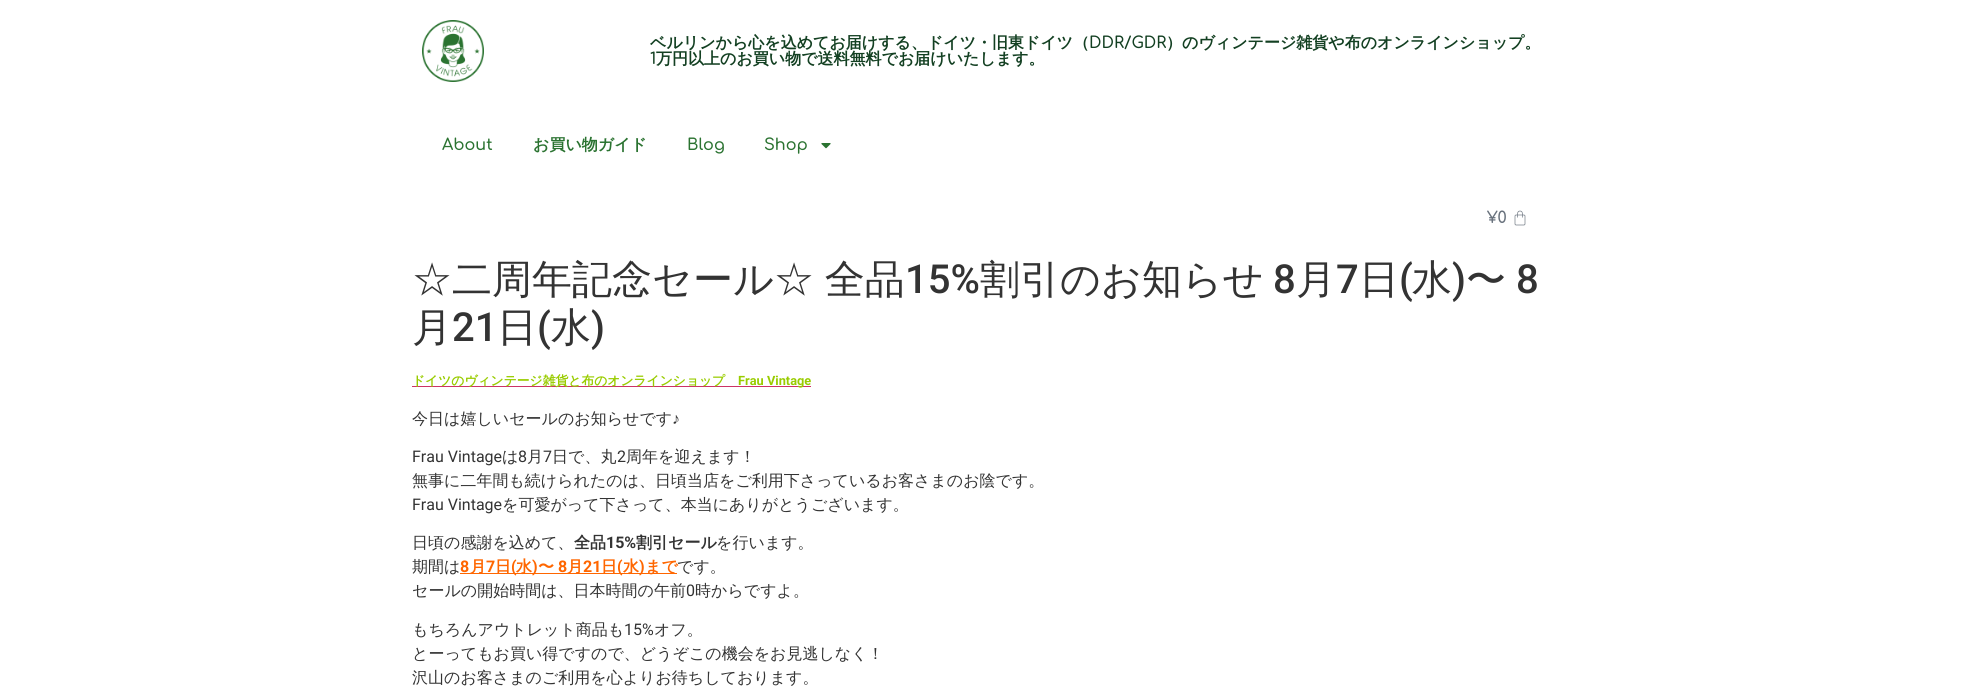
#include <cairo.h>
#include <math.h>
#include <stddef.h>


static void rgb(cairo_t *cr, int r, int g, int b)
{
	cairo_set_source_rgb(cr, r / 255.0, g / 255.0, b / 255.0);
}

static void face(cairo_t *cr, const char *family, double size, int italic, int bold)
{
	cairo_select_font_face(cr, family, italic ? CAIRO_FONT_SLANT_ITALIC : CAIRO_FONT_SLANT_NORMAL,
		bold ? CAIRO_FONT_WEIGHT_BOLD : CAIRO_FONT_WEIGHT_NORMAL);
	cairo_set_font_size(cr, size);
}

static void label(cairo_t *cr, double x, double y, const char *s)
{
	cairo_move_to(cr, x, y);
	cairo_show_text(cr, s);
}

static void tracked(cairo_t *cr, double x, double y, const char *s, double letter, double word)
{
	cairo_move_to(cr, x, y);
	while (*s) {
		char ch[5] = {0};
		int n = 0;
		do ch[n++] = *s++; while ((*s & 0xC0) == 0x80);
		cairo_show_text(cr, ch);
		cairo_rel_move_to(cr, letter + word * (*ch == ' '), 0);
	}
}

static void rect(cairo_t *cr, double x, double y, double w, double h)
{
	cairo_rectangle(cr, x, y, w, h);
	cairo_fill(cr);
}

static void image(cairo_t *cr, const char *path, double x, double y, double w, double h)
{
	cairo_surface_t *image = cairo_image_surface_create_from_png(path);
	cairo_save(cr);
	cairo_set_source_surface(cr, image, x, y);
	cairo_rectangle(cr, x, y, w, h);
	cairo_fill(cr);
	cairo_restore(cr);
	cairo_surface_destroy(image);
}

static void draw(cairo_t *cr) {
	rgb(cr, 255, 255, 255);
	cairo_paint(cr);
	image(cr, "image0.png", 422, 20, 62, 62);
	face(cr, "WenQuanYi Zen Hei", 16, 0, 1);
	rgb(cr, 19, 64, 34);
	label(cr, 650, 48, "ベルリンから心を込めてお届けする、ドイツ・旧東ドイツ（");
	face(cr, "Comfortaa SemiBold", 16, 0, 0);
	label(cr, 1089, 48, "DDR/GDR");
	face(cr, "WenQuanYi Zen Hei", 16, 0, 1);
	label(cr, 1166, 48, "）のヴィンテージ雑貨や布のオンラインショップ。");
	face(cr, "Comfortaa SemiBold", 16, 0, 0);
	label(cr, 650, 64, "1");
	face(cr, "WenQuanYi Zen Hei", 16, 0, 1);
	label(cr, 656, 64, "万円以上のお買い物で送料無料でお届けいたします。");
	face(cr, "Comfortaa SemiBold", 16, 0, 0);
	rgb(cr, 43, 115, 49);
	label(cr, 442, 150, "About");
	face(cr, "WenQuanYi Zen Hei", 16, 0, 1);
	label(cr, 533, 150, "お買い物ガイド");
	face(cr, "Comfortaa SemiBold", 16, 0, 0);
	label(cr, 687, 150, "Blog");
	label(cr, 764, 150, "Shop");
	image(cr, "image1.png", 821, 143, 10, 6);
	rgb(cr, 105, 114, 125);
	label(cr, 1487, 223, "¥0");
	image(cr, "image2.png", 1514, 210, 12, 16);
	face(cr, "WenQuanYi Zen Hei Medium", 40, 0, 0);
	rgb(cr, 51, 51, 51);
	tracked(cr, 412, 293, "☆二周年記念セール☆ 全品", 0, -1);
	face(cr, "Roboto Medium", 40, 0, 0);
	label(cr, 905, 293, "15%");
	face(cr, "WenQuanYi Zen Hei Medium", 40, 0, 0);
	label(cr, 980, 293, "割引のお知らせ");
	face(cr, "Roboto Medium", 40, 0, 0);
	label(cr, 1273, 293, "8");
	face(cr, "WenQuanYi Zen Hei Medium", 40, 0, 0);
	label(cr, 1296, 293, "月");
	face(cr, "Roboto Medium", 40, 0, 0);
	label(cr, 1336, 293, "7");
	face(cr, "WenQuanYi Zen Hei Medium", 40, 0, 0);
	label(cr, 1359, 293, "日");
	face(cr, "Roboto Medium", 40, 0, 0);
	label(cr, 1399, 293, "(");
	face(cr, "WenQuanYi Zen Hei Medium", 40, 0, 0);
	label(cr, 1412, 293, "水");
	face(cr, "Roboto Medium", 40, 0, 0);
	label(cr, 1452, 293, ")");
	face(cr, "WenQuanYi Zen Hei Medium", 40, 0, 0);
	label(cr, 1466, 293, "〜");
	face(cr, "Roboto Medium", 40, 0, 0);
	label(cr, 1516, 293, "8");
	face(cr, "WenQuanYi Zen Hei Medium", 40, 0, 0);
	label(cr, 412, 341, "月");
	face(cr, "Roboto Medium", 40, 0, 0);
	label(cr, 452, 341, "21");
	face(cr, "WenQuanYi Zen Hei Medium", 40, 0, 0);
	label(cr, 497, 341, "日");
	face(cr, "Roboto Medium", 40, 0, 0);
	label(cr, 537, 341, "(");
	face(cr, "WenQuanYi Zen Hei Medium", 40, 0, 0);
	label(cr, 551, 341, "水");
	face(cr, "Roboto Medium", 40, 0, 0);
	label(cr, 591, 341, ")");
	rgb(cr, 204, 51, 102);
	rect(cr, 412, 386, 399, 1);
	face(cr, "WenQuanYi Zen Hei", 12.8, 0, 1);
	rgb(cr, 153, 204, 0);
	label(cr, 412, 385, "ドイツのヴィンテージ雑貨と布のオンラインショップ");
	face(cr, "Roboto", 12.8, 0, 1);
	label(cr, 738, 385, "Frau Vintage");
	face(cr, "WenQuanYi Zen Hei Medium", 16, 0, 0);
	rgb(cr, 51, 51, 51);
	label(cr, 412, 424, "今日は嬉しいセールのお知らせです");
	face(cr, "Liberation Sans", 16, 0, 0);
	label(cr, 672, 424, "♪");
	face(cr, "Roboto", 16, 0, 0);
	label(cr, 412, 462, "Frau Vintage");
	face(cr, "WenQuanYi Zen Hei Medium", 16, 0, 0);
	label(cr, 502, 462, "は");
	face(cr, "Roboto", 16, 0, 0);
	label(cr, 518, 462, "8");
	face(cr, "WenQuanYi Zen Hei Medium", 16, 0, 0);
	label(cr, 527, 462, "月");
	face(cr, "Roboto", 16, 0, 0);
	label(cr, 543, 462, "7");
	face(cr, "WenQuanYi Zen Hei Medium", 16, 0, 0);
	label(cr, 552, 462, "日で、丸");
	face(cr, "Roboto", 16, 0, 0);
	label(cr, 617, 462, "2");
	face(cr, "WenQuanYi Zen Hei Medium", 16, 0, 0);
	label(cr, 626, 462, "周年を迎えます！");
	label(cr, 412, 486, "無事に二年間も続けられたのは、日頃当店をご利用下さっているお客さまのお陰です。");
	face(cr, "Roboto", 16, 0, 0);
	label(cr, 412, 510, "Frau Vintage");
	face(cr, "WenQuanYi Zen Hei Medium", 16, 0, 0);
	label(cr, 502, 510, "を可愛がって下さって、本当にありがとうございます。");
	label(cr, 412, 548, "日頃の感謝を込めて、");
	face(cr, "WenQuanYi Zen Hei", 16, 0, 1);
	label(cr, 574, 548, "全品");
	face(cr, "Roboto", 16, 0, 1);
	label(cr, 606, 548, "15%");
	face(cr, "WenQuanYi Zen Hei", 16, 0, 1);
	label(cr, 636, 548, "割引セール");
	face(cr, "WenQuanYi Zen Hei Medium", 16, 0, 0);
	label(cr, 716, 548, "を行います。");
	label(cr, 412, 572, "期間は");
	face(cr, "Roboto", 16, 0, 1);
	rgb(cr, 255, 102, 0);
	label(cr, 460, 572, "8");
	rect(cr, 460, 573, 217, 1);
	face(cr, "WenQuanYi Zen Hei", 16, 0, 1);
	label(cr, 470, 572, "月");
	face(cr, "Roboto", 16, 0, 1);
	label(cr, 486, 572, "7");
	face(cr, "WenQuanYi Zen Hei", 16, 0, 1);
	label(cr, 495, 572, "日");
	face(cr, "Roboto", 16, 0, 1);
	label(cr, 511, 572, "(");
	face(cr, "WenQuanYi Zen Hei", 16, 0, 1);
	label(cr, 516, 572, "水");
	face(cr, "Roboto", 16, 0, 1);
	label(cr, 532, 572, ")");
	face(cr, "WenQuanYi Zen Hei", 16, 0, 1);
	label(cr, 538, 572, "〜");
	face(cr, "Roboto", 16, 0, 1);
	label(cr, 558, 572, "8");
	face(cr, "WenQuanYi Zen Hei", 16, 0, 1);
	label(cr, 567, 572, "月");
	face(cr, "Roboto", 16, 0, 1);
	label(cr, 583, 572, "21");
	face(cr, "WenQuanYi Zen Hei", 16, 0, 1);
	label(cr, 601, 572, "日");
	face(cr, "Roboto", 16, 0, 1);
	label(cr, 617, 572, "(");
	face(cr, "WenQuanYi Zen Hei", 16, 0, 1);
	label(cr, 623, 572, "水");
	face(cr, "Roboto", 16, 0, 1);
	label(cr, 639, 572, ")");
	face(cr, "WenQuanYi Zen Hei", 16, 0, 1);
	label(cr, 645, 572, "まで");
	face(cr, "WenQuanYi Zen Hei Medium", 16, 0, 0);
	rgb(cr, 51, 51, 51);
	label(cr, 677, 572, "です。");
	label(cr, 412, 596, "セールの開始時間は、日本時間の午前");
	face(cr, "Roboto", 16, 0, 0);
	label(cr, 686, 596, "0");
	face(cr, "WenQuanYi Zen Hei Medium", 16, 0, 0);
	label(cr, 695, 596, "時からですよ。");
	label(cr, 412, 635, "もちろんアウトレット商品も");
	face(cr, "Roboto", 16, 0, 0);
	label(cr, 624, 635, "15%");
	face(cr, "WenQuanYi Zen Hei Medium", 16, 0, 0);
	label(cr, 654, 635, "オフ。");
	label(cr, 412, 659, "とーってもお買い得ですので、どうぞこの機会をお見逃しなく！");
	label(cr, 412, 683, "沢山のお客さまのご利用を心よりお待ちしております。");
}

int main(void) {
	cairo_surface_t *surface = cairo_image_surface_create(CAIRO_FORMAT_RGB24, 1964, 693);
	cairo_t *cr = cairo_create(surface);
	cairo_font_options_t *options = cairo_font_options_create();
	cairo_font_options_set_hint_metrics(options, CAIRO_HINT_METRICS_OFF);
	cairo_font_options_set_hint_style(options, CAIRO_HINT_STYLE_NONE);
	cairo_set_font_options(cr, options);
	cairo_set_miter_limit(cr, 4);
	draw(cr);
	cairo_surface_write_to_png(surface, "render.png");
	cairo_font_options_destroy(options);
	cairo_destroy(cr);
	cairo_surface_destroy(surface);
	return 0;
}
